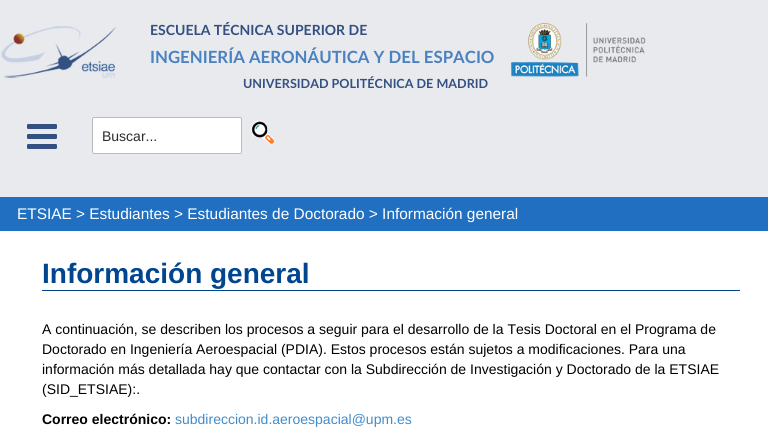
#include <cairo.h>
#include <math.h>
#include <stddef.h>


static void rgb(cairo_t *cr, int r, int g, int b)
{
	cairo_set_source_rgb(cr, r / 255.0, g / 255.0, b / 255.0);
}

static void face(cairo_t *cr, const char *family, double size, int italic, int bold)
{
	cairo_select_font_face(cr, family, italic ? CAIRO_FONT_SLANT_ITALIC : CAIRO_FONT_SLANT_NORMAL,
		bold ? CAIRO_FONT_WEIGHT_BOLD : CAIRO_FONT_WEIGHT_NORMAL);
	cairo_set_font_size(cr, size);
}

static void label(cairo_t *cr, double x, double y, const char *s)
{
	cairo_move_to(cr, x, y);
	cairo_show_text(cr, s);
}

static void rect(cairo_t *cr, double x, double y, double w, double h)
{
	cairo_rectangle(cr, x, y, w, h);
	cairo_fill(cr);
}

static void rrect(cairo_t *cr, double x, double y, double w, double h, double r)
{
	cairo_new_sub_path(cr);
	cairo_arc(cr, x + w - r, y + h - r, r, 0, M_PI / 2);
	cairo_arc(cr, x + r, y + h - r, r, M_PI / 2, M_PI);
	cairo_arc(cr, x + r, y + r, r, M_PI, 1.5 * M_PI);
	cairo_arc(cr, x + w - r, y + r, r, 1.5 * M_PI, 2 * M_PI);
	cairo_close_path(cr);
}

static void image(cairo_t *cr, const char *path, double x, double y, double w, double h)
{
	cairo_surface_t *image = cairo_image_surface_create_from_png(path);
	cairo_save(cr);
	cairo_set_source_surface(cr, image, x, y);
	cairo_rectangle(cr, x, y, w, h);
	cairo_fill(cr);
	cairo_restore(cr);
	cairo_surface_destroy(image);
}

static void draw(cairo_t *cr) {
	rgb(cr, 255, 255, 255);
	cairo_paint(cr);
	rgb(cr, 232, 234, 237);
	rect(cr, 0, 0, 768, 197);
	image(cr, "image0.png", 1, 26, 115, 52);
	face(cr, "Lato", 14, 0, 1);
	rgb(cr, 52, 80, 130);
	label(cr, 150, 35, "ESCUELA TÉCNICA SUPERIOR DE");
	face(cr, "Lato", 16.8, 0, 1);
	rgb(cr, 74, 129, 193);
	label(cr, 150, 63, "INGENIERÍA AERONÁUTICA Y DEL ESPACIO");
	face(cr, "Lato", 12.6, 0, 1);
	rgb(cr, 52, 80, 130);
	label(cr, 243, 88, "UNIVERSIDAD POLITÉCNICA DE MADRID");
	image(cr, "image1.png", 511, 22, 135, 55);
	image(cr, "image2.png", 27, 124, 30, 25);
	rgb(cr, 255, 255, 255);
	rrect(cr, 92.5, 117.5, 149, 36, 1.5);
	cairo_fill_preserve(cr);
	rgb(cr, 187, 187, 187);
	cairo_set_line_width(cr, 1);
	cairo_stroke(cr);
	face(cr, "Liberation Sans", 14, 0, 0);
	rgb(cr, 43, 43, 43);
	label(cr, 102, 141, "Buscar...");
	image(cr, "image3.png", 250, 120, 25, 25);
	rgb(cr, 33, 111, 192);
	rect(cr, 0, 197, 768, 34);
	face(cr, "Liberation Sans", 15.4, 0, 0);
	rgb(cr, 255, 255, 255);
	label(cr, 17, 219, "ETSIAE > Estudiantes > Estudiantes de Doctorado > Información general");
	rgb(cr, 0, 69, 143);
	rect(cr, 42, 290, 698, 1);
	face(cr, "Liberation Sans", 28, 0, 1);
	label(cr, 42, 283, "Información general");
	face(cr, "Liberation Sans", 14, 0, 0);
	rgb(cr, 0, 0, 0);
	label(cr, 42, 334, "A continuación, se describen los procesos a seguir para el desarrollo de la Tesis Doctoral en el Programa de");
	label(cr, 42, 354, "Doctorado en Ingeniería Aeroespacial (PDIA). Estos procesos están sujetos a modificaciones. Para una");
	label(cr, 42, 374, "información más detallada hay que contactar con la Subdirección de Investigación y Doctorado de la ETSIAE");
	label(cr, 42, 394, "(SID_ETSIAE):.");
	face(cr, "Liberation Sans", 14, 0, 1);
	label(cr, 42, 424, "Correo electrónico:");
	face(cr, "Liberation Sans", 14, 0, 0);
	rgb(cr, 66, 139, 202);
	label(cr, 175, 424, "subdireccion.id.aeroespacial@upm.es");
}

int main(void) {
	cairo_surface_t *surface = cairo_image_surface_create(CAIRO_FORMAT_RGB24, 768, 441);
	cairo_t *cr = cairo_create(surface);
	cairo_font_options_t *options = cairo_font_options_create();
	cairo_font_options_set_hint_metrics(options, CAIRO_HINT_METRICS_OFF);
	cairo_font_options_set_hint_style(options, CAIRO_HINT_STYLE_NONE);
	cairo_set_font_options(cr, options);
	cairo_set_miter_limit(cr, 4);
	draw(cr);
	cairo_surface_write_to_png(surface, "render.png");
	cairo_font_options_destroy(options);
	cairo_destroy(cr);
	cairo_surface_destroy(surface);
	return 0;
}
